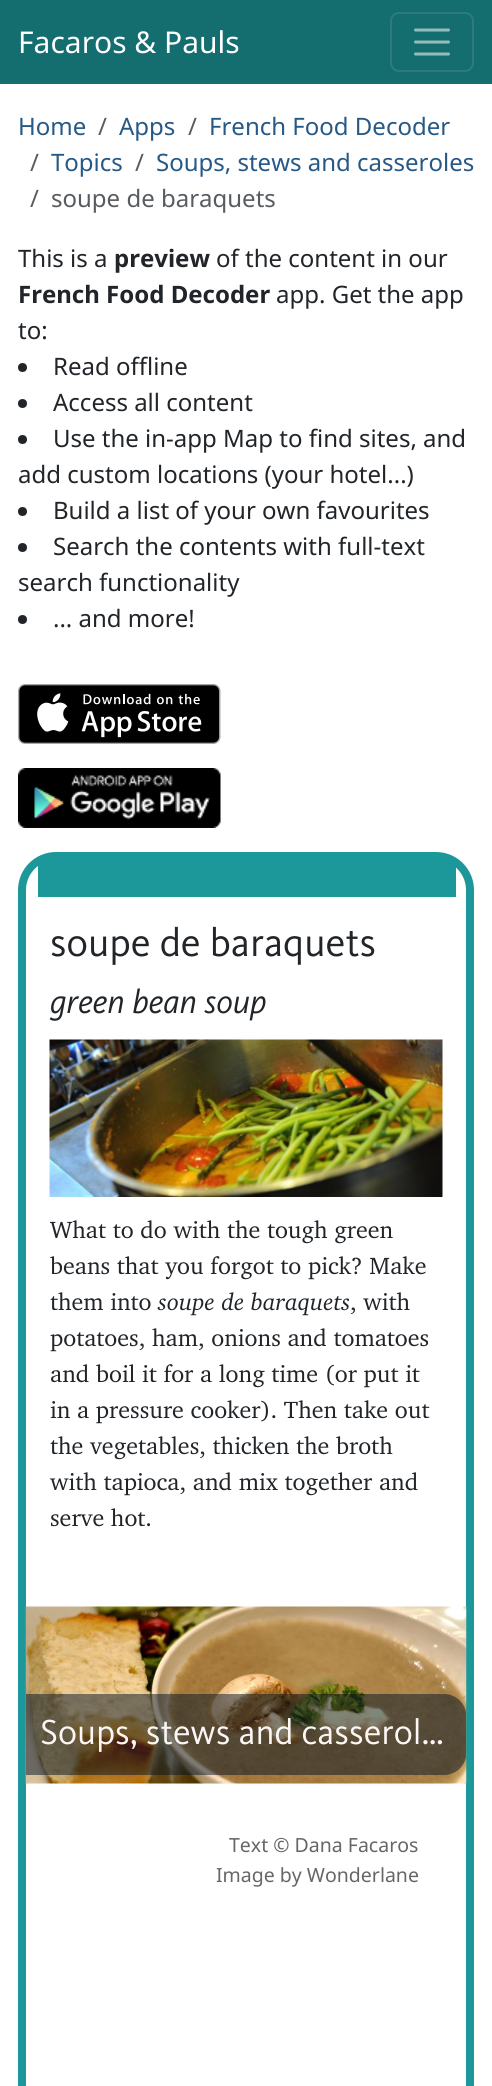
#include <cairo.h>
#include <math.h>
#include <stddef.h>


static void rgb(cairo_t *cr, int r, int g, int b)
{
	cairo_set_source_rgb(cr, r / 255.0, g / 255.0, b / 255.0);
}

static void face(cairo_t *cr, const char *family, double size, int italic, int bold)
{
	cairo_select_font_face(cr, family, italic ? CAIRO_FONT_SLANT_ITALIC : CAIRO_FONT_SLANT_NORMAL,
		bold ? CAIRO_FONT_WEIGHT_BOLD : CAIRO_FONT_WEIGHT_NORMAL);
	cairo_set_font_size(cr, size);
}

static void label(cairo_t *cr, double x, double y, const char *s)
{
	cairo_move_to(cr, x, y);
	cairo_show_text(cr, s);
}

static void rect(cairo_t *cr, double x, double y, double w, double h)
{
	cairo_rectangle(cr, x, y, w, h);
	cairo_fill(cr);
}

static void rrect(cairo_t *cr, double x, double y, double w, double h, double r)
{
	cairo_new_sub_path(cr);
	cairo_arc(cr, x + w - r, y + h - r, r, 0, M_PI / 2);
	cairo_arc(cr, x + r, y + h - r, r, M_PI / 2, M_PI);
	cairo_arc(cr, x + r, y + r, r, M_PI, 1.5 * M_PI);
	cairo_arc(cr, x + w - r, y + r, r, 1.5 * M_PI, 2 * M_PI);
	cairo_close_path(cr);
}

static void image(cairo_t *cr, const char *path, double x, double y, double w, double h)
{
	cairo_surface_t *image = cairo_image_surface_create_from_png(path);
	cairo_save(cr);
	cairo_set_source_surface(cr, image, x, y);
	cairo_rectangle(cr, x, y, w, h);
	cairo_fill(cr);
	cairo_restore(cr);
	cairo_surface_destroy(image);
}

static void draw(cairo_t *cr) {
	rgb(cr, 255, 255, 255);
	cairo_paint(cr);
	rgb(cr, 20, 109, 111);
	rect(cr, 0, 0, 492, 84);
	face(cr, "Noto Sans", 30, 0, 0);
	rgb(cr, 255, 255, 255);
	label(cr, 18, 53, "Facaros & Pauls");
	rrect(cr, 391, 13, 82, 58, 8);
	rgb(cr, 44, 124, 125);
	cairo_stroke(cr);
	cairo_new_path(cr);
	cairo_move_to(cr, 415.5, 30);
	cairo_line_to(cr, 448.5, 30);
	cairo_move_to(cr, 415.5, 42);
	cairo_line_to(cr, 448.5, 42);
	cairo_move_to(cr, 415.5, 54);
	cairo_line_to(cr, 448.5, 54);
	rgb(cr, 149, 189, 190);
	cairo_set_line_width(cr, 3);
	cairo_set_line_cap(cr, CAIRO_LINE_CAP_ROUND);
	cairo_stroke(cr);
	face(cr, "Noto Sans", 24, 0, 0);
	rgb(cr, 38, 89, 134);
	label(cr, 18, 135, "Home");
	rgb(cr, 89, 92, 95);
	label(cr, 98, 135, "/");
	rgb(cr, 38, 89, 134);
	label(cr, 119, 135, "Apps");
	rgb(cr, 89, 92, 95);
	label(cr, 188, 135, "/");
	rgb(cr, 38, 89, 134);
	label(cr, 209, 135, "French Food Decoder");
	rgb(cr, 89, 92, 95);
	label(cr, 30, 171, "/");
	rgb(cr, 38, 89, 134);
	label(cr, 51, 171, "Topics");
	rgb(cr, 89, 92, 95);
	label(cr, 135, 171, "/");
	rgb(cr, 38, 89, 134);
	label(cr, 156, 171, "Soups, stews and casseroles");
	rgb(cr, 89, 92, 95);
	label(cr, 30, 207, "/");
	label(cr, 51, 207, "soupe de baraquets");
	rgb(cr, 33, 37, 41);
	label(cr, 18, 267, "This is a");
	face(cr, "Noto Sans", 24, 0, 1);
	label(cr, 114, 267, "preview");
	face(cr, "Noto Sans", 24, 0, 0);
	label(cr, 216, 267, "of the content in our");
	face(cr, "Noto Sans", 24, 0, 1);
	label(cr, 18, 303, "French Food Decoder");
	face(cr, "Noto Sans", 24, 0, 0);
	label(cr, 276, 303, "app. Get the app");
	label(cr, 18, 339, "to:");
	cairo_new_path(cr);
	cairo_arc(cr, 22.5, 367.5, 4.5, 0, 2 * M_PI);
	cairo_fill(cr);
	label(cr, 53, 375, "Read offline");
	cairo_new_path(cr);
	cairo_arc(cr, 22.5, 403.5, 4.5, 0, 2 * M_PI);
	cairo_fill(cr);
	label(cr, 53, 411, "Access all content");
	cairo_new_path(cr);
	cairo_arc(cr, 22.5, 439.5, 4.5, 0, 2 * M_PI);
	cairo_fill(cr);
	label(cr, 53, 447, "Use the in-app Map to find sites, and");
	label(cr, 18, 483, "add custom locations (your hotel...)");
	cairo_new_path(cr);
	cairo_arc(cr, 22.5, 511.5, 4.5, 0, 2 * M_PI);
	cairo_fill(cr);
	label(cr, 53, 519, "Build a list of your own favourites");
	cairo_new_path(cr);
	cairo_arc(cr, 22.5, 547.5, 4.5, 0, 2 * M_PI);
	cairo_fill(cr);
	label(cr, 53, 555, "Search the contents with full-text");
	label(cr, 18, 591, "search functionality");
	cairo_new_path(cr);
	cairo_arc(cr, 22.5, 619.5, 4.5, 0, 2 * M_PI);
	cairo_fill(cr);
	label(cr, 53, 627, "... and more!");
	image(cr, "image0.png", 18, 684, 203, 60);
	image(cr, "image1.png", 18, 768, 203, 60);
	rrect(cr, 22, 856, 448, 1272, 34);
	rgb(cr, 28, 151, 154);
	cairo_set_line_width(cr, 8);
	cairo_set_line_cap(cr, CAIRO_LINE_CAP_BUTT);
	cairo_stroke(cr);
	rect(cr, 38, 860, 418, 37);
	face(cr, "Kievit", 40.5, 0, 0);
	rgb(cr, 33, 37, 41);
	label(cr, 50, 956, "soupe de baraquets");
	face(cr, "Kievit", 34, 1, 0);
	label(cr, 50, 1013, "green bean soup");
	image(cr, "image2.png", 49, 1039, 394, 158);
	face(cr, "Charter", 24, 0, 0);
	label(cr, 50, 1238, "What to do with the tough green");
	label(cr, 50, 1274, "beans that you forgot to pick? Make");
	label(cr, 50, 1310, "them into");
	face(cr, "Charter", 24, 1, 0);
	label(cr, 158, 1310, "soupe de baraquets");
	face(cr, "Charter", 24, 0, 0);
	label(cr, 350, 1310, ", with");
	label(cr, 50, 1346, "potatoes, ham, onions and tomatoes");
	label(cr, 50, 1382, "and boil it for a long time (or put it");
	label(cr, 50, 1418, "in a pressure cooker). Then take out");
	label(cr, 50, 1454, "the vegetables, thicken the broth");
	label(cr, 50, 1490, "with tapioca, and mix together and");
	label(cr, 50, 1526, "serve hot.");
	image(cr, "image3.png", 25, 1606, 442, 178);
	cairo_set_source_rgba(cr, 0, 0.078, 0.153, 0.5);
	cairo_new_path(cr);
	cairo_move_to(cr, 26, 1694);
	cairo_line_to(cr, 444, 1694);
	cairo_curve_to(cr, 455, 1694, 464, 1702, 466, 1712);
	cairo_line_to(cr, 466, 1757);
	cairo_curve_to(cr, 464, 1767, 455, 1775, 444, 1775);
	cairo_line_to(cr, 26, 1775);
	cairo_close_path(cr);
	cairo_fill(cr);
	face(cr, "Kievit", 36, 0, 0);
	rgb(cr, 252, 246, 245);
	label(cr, 40, 1744, "Soups, stews and casserol…");
	face(cr, "Noto Sans", 19.5, 0, 0);
	rgb(cr, 102, 102, 102);
	label(cr, 229, 1852, "Text © Dana Facaros");
	label(cr, 216, 1882, "Image by Wonderlane");
}

int main(void) {
	cairo_surface_t *surface = cairo_image_surface_create(CAIRO_FORMAT_RGB24, 492, 2086);
	cairo_t *cr = cairo_create(surface);
	cairo_font_options_t *options = cairo_font_options_create();
	cairo_font_options_set_hint_metrics(options, CAIRO_HINT_METRICS_OFF);
	cairo_font_options_set_hint_style(options, CAIRO_HINT_STYLE_NONE);
	cairo_set_font_options(cr, options);
	cairo_set_miter_limit(cr, 4);
	draw(cr);
	cairo_surface_write_to_png(surface, "render.png");
	cairo_font_options_destroy(options);
	cairo_destroy(cr);
	cairo_surface_destroy(surface);
	return 0;
}
